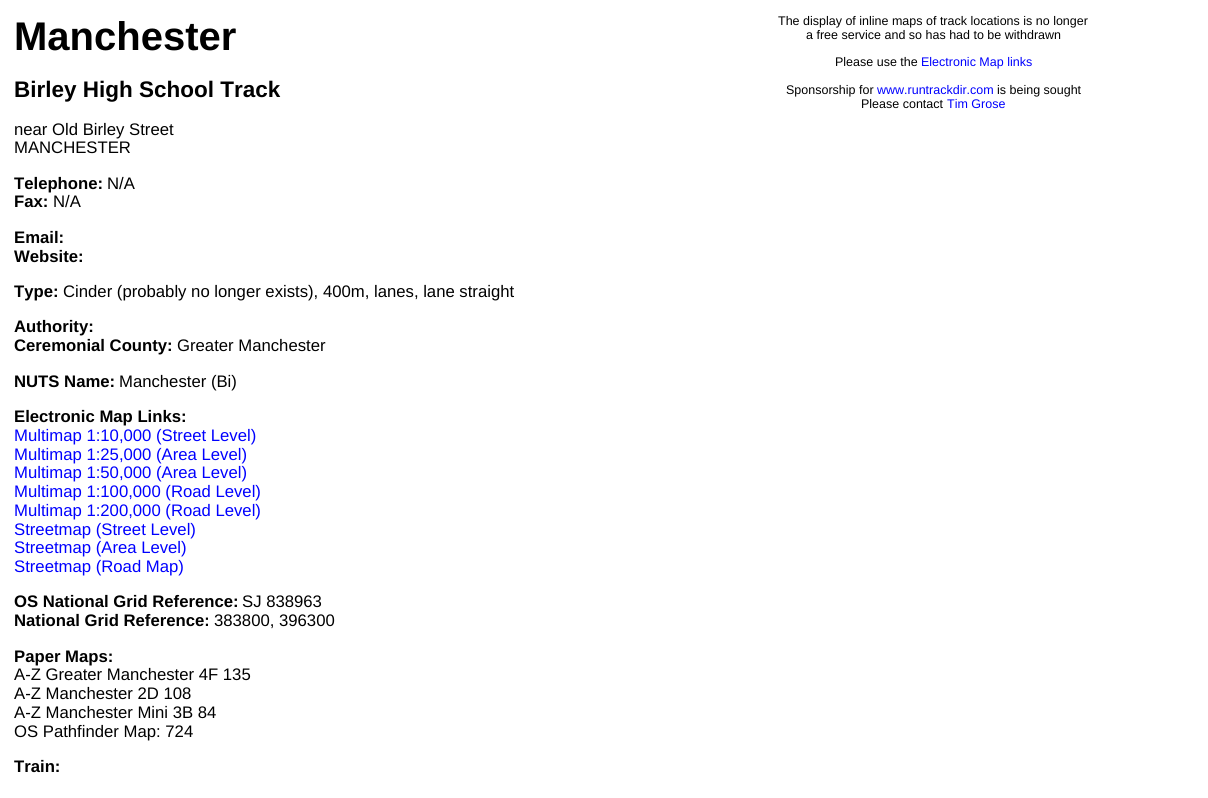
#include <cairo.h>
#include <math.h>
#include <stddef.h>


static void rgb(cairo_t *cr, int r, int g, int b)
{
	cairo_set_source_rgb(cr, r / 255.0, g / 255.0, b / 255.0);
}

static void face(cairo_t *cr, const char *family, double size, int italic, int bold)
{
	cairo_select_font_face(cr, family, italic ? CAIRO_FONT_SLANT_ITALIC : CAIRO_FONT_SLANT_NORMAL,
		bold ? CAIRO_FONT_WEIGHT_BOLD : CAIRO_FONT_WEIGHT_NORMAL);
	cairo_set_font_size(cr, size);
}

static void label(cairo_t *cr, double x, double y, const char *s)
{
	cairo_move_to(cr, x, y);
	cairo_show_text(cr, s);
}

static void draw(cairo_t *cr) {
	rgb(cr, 255, 255, 255);
	cairo_paint(cr);
	face(cr, "Liberation Sans", 40, 0, 1);
	rgb(cr, 0, 0, 0);
	label(cr, 14, 50, "Manchester");
	face(cr, "Liberation Sans", 22.5, 0, 1);
	label(cr, 14, 97, "Birley High School Track");
	face(cr, "Liberation Sans", 16.7, 0, 0);
	label(cr, 14, 135, "near Old Birley Street");
	label(cr, 14, 153, "MANCHESTER");
	face(cr, "Liberation Sans", 16.7, 0, 1);
	label(cr, 14, 189, "Telephone:");
	face(cr, "Liberation Sans", 16.7, 0, 0);
	label(cr, 107, 189, "N/A");
	face(cr, "Liberation Sans", 16.7, 0, 1);
	label(cr, 14, 207, "Fax:");
	face(cr, "Liberation Sans", 16.7, 0, 0);
	label(cr, 53, 207, "N/A");
	face(cr, "Liberation Sans", 16.7, 0, 1);
	label(cr, 14, 243, "Email:");
	label(cr, 14, 262, "Website:");
	label(cr, 14, 297, "Type:");
	face(cr, "Liberation Sans", 16.7, 0, 0);
	label(cr, 63, 297, "Cinder (probably no longer exists), 400m, lanes, lane straight");
	face(cr, "Liberation Sans", 16.7, 0, 1);
	label(cr, 14, 332, "Authority:");
	label(cr, 14, 351, "Ceremonial County:");
	face(cr, "Liberation Sans", 16.7, 0, 0);
	label(cr, 177, 351, "Greater Manchester");
	face(cr, "Liberation Sans", 16.7, 0, 1);
	label(cr, 14, 387, "NUTS Name:");
	face(cr, "Liberation Sans", 16.7, 0, 0);
	label(cr, 119, 387, "Manchester (Bi)");
	face(cr, "Liberation Sans", 16.7, 0, 1);
	label(cr, 14, 422, "Electronic Map Links:");
	face(cr, "Liberation Sans", 16.7, 0, 0);
	rgb(cr, 0, 0, 255);
	label(cr, 14, 441, "Multimap 1:10,000 (Street Level)");
	label(cr, 14, 460, "Multimap 1:25,000 (Area Level)");
	label(cr, 14, 478, "Multimap 1:50,000 (Area Level)");
	label(cr, 14, 497, "Multimap 1:100,000 (Road Level)");
	label(cr, 14, 516, "Multimap 1:200,000 (Road Level)");
	label(cr, 14, 535, "Streetmap (Street Level)");
	label(cr, 14, 553, "Streetmap (Area Level)");
	label(cr, 14, 572, "Streetmap (Road Map)");
	face(cr, "Liberation Sans", 16.7, 0, 1);
	rgb(cr, 0, 0, 0);
	label(cr, 14, 607, "OS National Grid Reference:");
	face(cr, "Liberation Sans", 16.7, 0, 0);
	label(cr, 242, 607, "SJ 838963");
	face(cr, "Liberation Sans", 16.7, 0, 1);
	label(cr, 14, 626, "National Grid Reference:");
	face(cr, "Liberation Sans", 16.7, 0, 0);
	label(cr, 214, 626, "383800, 396300");
	face(cr, "Liberation Sans", 16.7, 0, 1);
	label(cr, 14, 662, "Paper Maps:");
	face(cr, "Liberation Sans", 16.7, 0, 0);
	label(cr, 14, 680, "A-Z Greater Manchester 4F 135");
	label(cr, 14, 699, "A-Z Manchester 2D 108");
	label(cr, 14, 718, "A-Z Manchester Mini 3B 84");
	label(cr, 14, 737, "OS Pathfinder Map: 724");
	face(cr, "Liberation Sans", 16.7, 0, 1);
	label(cr, 14, 772, "Train:");
	face(cr, "Liberation Sans", 12.5, 0, 0);
	label(cr, 778, 25, "The display of inline maps of track locations is no longer");
	label(cr, 806, 39, "a free service and so has had to be withdrawn");
	label(cr, 835, 66, "Please use the");
	rgb(cr, 0, 0, 255);
	label(cr, 921, 66, "Electronic Map links");
	rgb(cr, 0, 0, 0);
	label(cr, 786, 94, "Sponsorship for");
	rgb(cr, 0, 0, 255);
	label(cr, 877, 94, "www.runtrackdir.com");
	rgb(cr, 0, 0, 0);
	label(cr, 997, 94, "is being sought");
	label(cr, 861, 108, "Please contact");
	rgb(cr, 0, 0, 255);
	label(cr, 947, 108, "Tim Grose");
}

int main(void) {
	cairo_surface_t *surface = cairo_image_surface_create(CAIRO_FORMAT_RGB24, 1208, 798);
	cairo_t *cr = cairo_create(surface);
	cairo_font_options_t *options = cairo_font_options_create();
	cairo_font_options_set_hint_metrics(options, CAIRO_HINT_METRICS_OFF);
	cairo_font_options_set_hint_style(options, CAIRO_HINT_STYLE_NONE);
	cairo_set_font_options(cr, options);
	cairo_set_miter_limit(cr, 4);
	draw(cr);
	cairo_surface_write_to_png(surface, "render.png");
	cairo_font_options_destroy(options);
	cairo_destroy(cr);
	cairo_surface_destroy(surface);
	return 0;
}
